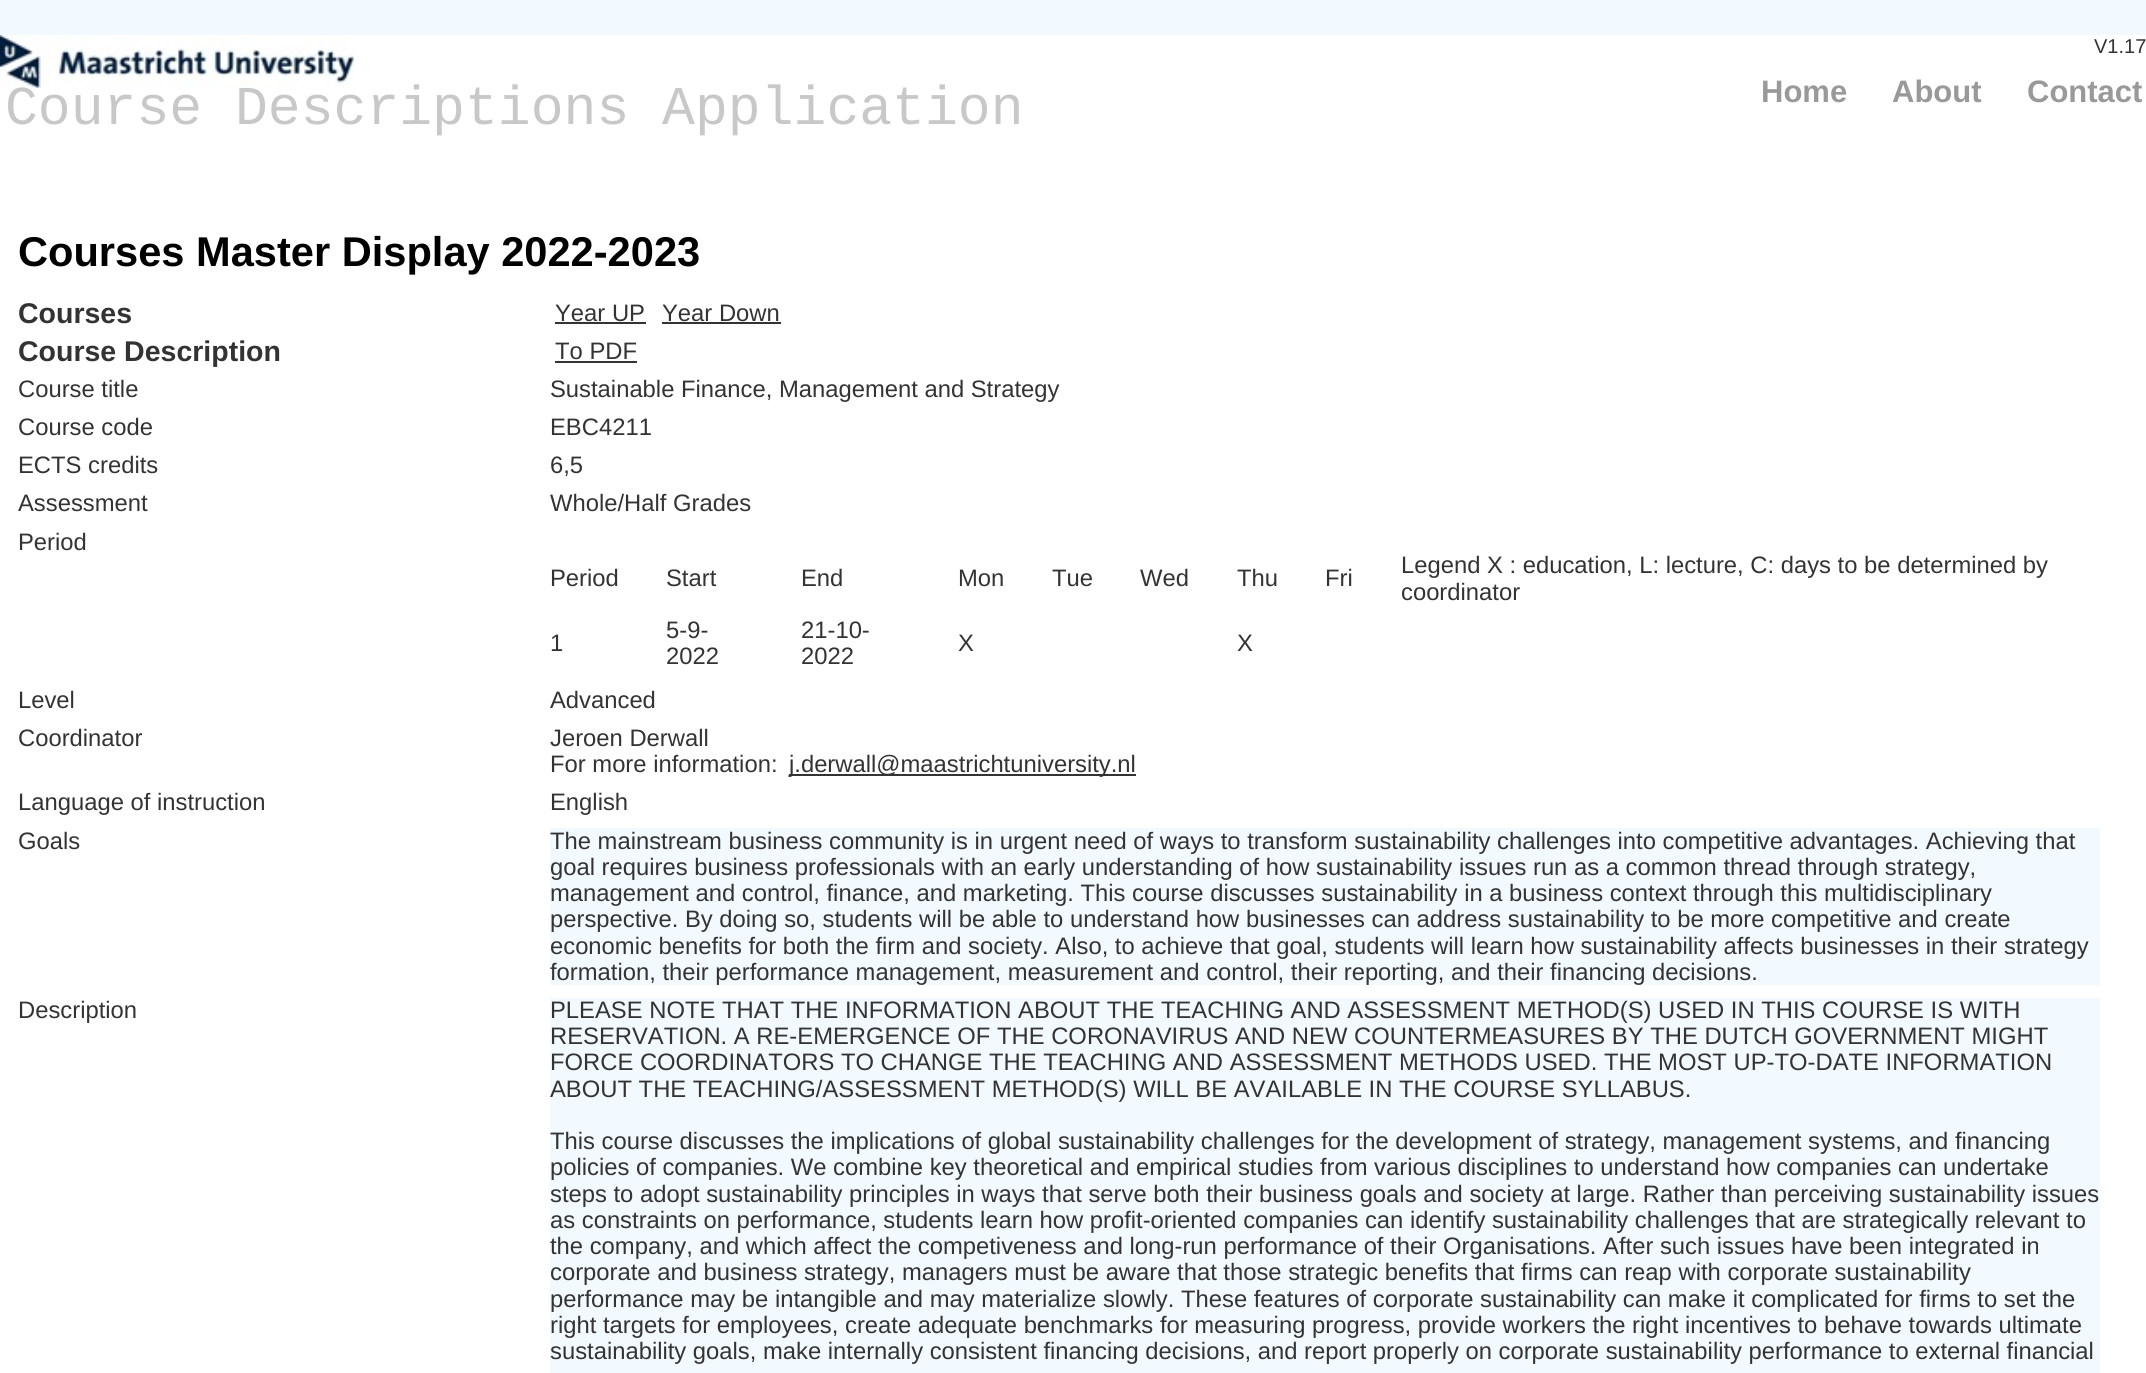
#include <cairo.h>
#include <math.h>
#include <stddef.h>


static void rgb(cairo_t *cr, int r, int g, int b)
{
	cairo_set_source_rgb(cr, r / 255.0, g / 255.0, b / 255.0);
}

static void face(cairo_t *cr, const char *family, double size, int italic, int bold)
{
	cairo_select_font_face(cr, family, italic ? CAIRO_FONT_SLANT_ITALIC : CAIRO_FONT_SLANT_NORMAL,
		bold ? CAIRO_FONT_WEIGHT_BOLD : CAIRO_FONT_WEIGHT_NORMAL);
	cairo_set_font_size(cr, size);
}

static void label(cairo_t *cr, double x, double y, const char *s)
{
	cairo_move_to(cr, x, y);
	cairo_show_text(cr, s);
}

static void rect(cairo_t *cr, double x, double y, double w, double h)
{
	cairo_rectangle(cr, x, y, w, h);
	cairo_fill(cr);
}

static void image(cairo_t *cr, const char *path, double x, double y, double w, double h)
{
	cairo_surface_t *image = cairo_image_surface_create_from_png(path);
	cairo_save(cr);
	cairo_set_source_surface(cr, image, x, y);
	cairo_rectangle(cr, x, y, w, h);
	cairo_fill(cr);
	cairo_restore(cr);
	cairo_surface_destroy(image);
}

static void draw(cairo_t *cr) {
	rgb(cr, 255, 255, 255);
	cairo_paint(cr);
	rgb(cr, 242, 249, 255);
	rect(cr, 0, 0, 2146, 35);
	face(cr, "Liberation Sans", 20, 0, 0);
	rgb(cr, 51, 51, 51);
	label(cr, 2094, 53, "V1.17");
	face(cr, "Liberation Sans", 31, 0, 1);
	rgb(cr, 153, 153, 153);
	label(cr, 1761, 102, "Home");
	label(cr, 1892, 102, "About");
	label(cr, 2027, 102, "Contact");
	image(cr, "image0.png", 0, 35, 355, 53);
	face(cr, "Liberation Mono", 54.75, 0, 0);
	rgb(cr, 200, 200, 200);
	label(cr, 5, 124, "Course Descriptions Application");
	face(cr, "Liberation Sans", 41.6, 0, 1);
	rgb(cr, 0, 0, 0);
	label(cr, 18, 266, "Courses Master Display 2022-2023");
	face(cr, "Liberation Sans", 28.5, 0, 1);
	rgb(cr, 51, 51, 51);
	label(cr, 18, 323, "Courses");
	face(cr, "Liberation Sans", 23.8, 0, 0);
	label(cr, 555, 321, "Year UP");
	rect(cr, 555, 322, 91, 2);
	label(cr, 662, 321, "Year Down");
	rect(cr, 662, 322, 119, 2);
	face(cr, "Liberation Sans", 28.5, 0, 1);
	label(cr, 18, 361, "Course Description");
	face(cr, "Liberation Sans", 23.8, 0, 0);
	label(cr, 555, 359, "To PDF");
	rect(cr, 555, 361, 82, 2);
	label(cr, 18, 397, "Course title");
	label(cr, 550, 397, "Sustainable Finance, Management and Strategy");
	label(cr, 18, 435, "Course code");
	label(cr, 550, 435, "EBC4211");
	label(cr, 18, 473, "ECTS credits");
	label(cr, 550, 473, "6,5");
	label(cr, 18, 511, "Assessment");
	label(cr, 550, 511, "Whole/Half Grades");
	label(cr, 18, 550, "Period");
	label(cr, 550, 586, "Period");
	label(cr, 666, 586, "Start");
	label(cr, 801, 586, "End");
	label(cr, 958, 586, "Mon");
	label(cr, 1052, 586, "Tue");
	label(cr, 1140, 586, "Wed");
	label(cr, 1237, 586, "Thu");
	label(cr, 1325, 586, "Fri");
	label(cr, 1401, 573, "Legend X : education, L: lecture, C: days to be determined by");
	label(cr, 1401, 600, "coordinator");
	label(cr, 550, 651, "1");
	label(cr, 666, 638, "5-9-");
	label(cr, 666, 664, "2022");
	label(cr, 801, 638, "21-10-");
	label(cr, 801, 664, "2022");
	label(cr, 958, 651, "X");
	label(cr, 1237, 651, "X");
	label(cr, 18, 708, "Level");
	label(cr, 550, 708, "Advanced");
	label(cr, 18, 746, "Coordinator");
	label(cr, 550, 746, "Jeroen Derwall");
	label(cr, 550, 772, "For more information:");
	rect(cr, 789, 774, 347, 2);
	label(cr, 789, 772, "j.derwall@maastrichtuniversity.nl");
	label(cr, 18, 810, "Language of instruction");
	label(cr, 550, 810, "English");
	label(cr, 18, 849, "Goals");
	rgb(cr, 242, 249, 255);
	rect(cr, 550, 828, 1550, 157);
	rgb(cr, 51, 51, 51);
	label(cr, 550, 849, "The mainstream business community is in urgent need of ways to transform sustainability challenges into competitive advantages. Achieving that");
	label(cr, 550, 875, "goal requires business professionals with an early understanding of how sustainability issues run as a common thread through strategy,");
	label(cr, 550, 901, "management and control, finance, and marketing. This course discusses sustainability in a business context through this multidisciplinary");
	label(cr, 550, 927, "perspective. By doing so, students will be able to understand how businesses can address sustainability to be more competitive and create");
	label(cr, 550, 954, "economic benefits for both the firm and society. Also, to achieve that goal, students will learn how sustainability affects businesses in their strategy");
	label(cr, 550, 980, "formation, their performance management, measurement and control, their reporting, and their financing decisions.");
	label(cr, 18, 1018, "Description");
	rgb(cr, 242, 249, 255);
	rect(cr, 550, 998, 1550, 375);
	rgb(cr, 51, 51, 51);
	label(cr, 550, 1018, "PLEASE NOTE THAT THE INFORMATION ABOUT THE TEACHING AND ASSESSMENT METHOD(S) USED IN THIS COURSE IS WITH");
	label(cr, 550, 1044, "RESERVATION. A RE-EMERGENCE OF THE CORONAVIRUS AND NEW COUNTERMEASURES BY THE DUTCH GOVERNMENT MIGHT");
	label(cr, 550, 1070, "FORCE COORDINATORS TO CHANGE THE TEACHING AND ASSESSMENT METHODS USED. THE MOST UP-TO-DATE INFORMATION");
	label(cr, 550, 1097, "ABOUT THE TEACHING/ASSESSMENT METHOD(S) WILL BE AVAILABLE IN THE COURSE SYLLABUS.");
	label(cr, 550, 1149, "This course discusses the implications of global sustainability challenges for the development of strategy, management systems, and financing");
	label(cr, 550, 1175, "policies of companies. We combine key theoretical and empirical studies from various disciplines to understand how companies can undertake");
	label(cr, 550, 1202, "steps to adopt sustainability principles in ways that serve both their business goals and society at large. Rather than perceiving sustainability issues");
	label(cr, 550, 1228, "as constraints on performance, students learn how profit-oriented companies can identify sustainability challenges that are strategically relevant to");
	label(cr, 550, 1254, "the company, and which affect the competiveness and long-run performance of their Organisations. After such issues have been integrated in");
	label(cr, 550, 1280, "corporate and business strategy, managers must be aware that those strategic benefits that firms can reap with corporate sustainability");
	label(cr, 550, 1307, "performance may be intangible and may materialize slowly. These features of corporate sustainability can make it complicated for firms to set the");
	label(cr, 550, 1333, "right targets for employees, create adequate benchmarks for measuring progress, provide workers the right incentives to behave towards ultimate");
	label(cr, 550, 1359, "sustainability goals, make internally consistent financing decisions, and report properly on corporate sustainability performance to external financial");
}

int main(void) {
	cairo_surface_t *surface = cairo_image_surface_create(CAIRO_FORMAT_RGB24, 2146, 1373);
	cairo_t *cr = cairo_create(surface);
	cairo_font_options_t *options = cairo_font_options_create();
	cairo_font_options_set_hint_metrics(options, CAIRO_HINT_METRICS_OFF);
	cairo_font_options_set_hint_style(options, CAIRO_HINT_STYLE_NONE);
	cairo_set_font_options(cr, options);
	cairo_set_miter_limit(cr, 4);
	draw(cr);
	cairo_surface_write_to_png(surface, "render.png");
	cairo_font_options_destroy(options);
	cairo_destroy(cr);
	cairo_surface_destroy(surface);
	return 0;
}
